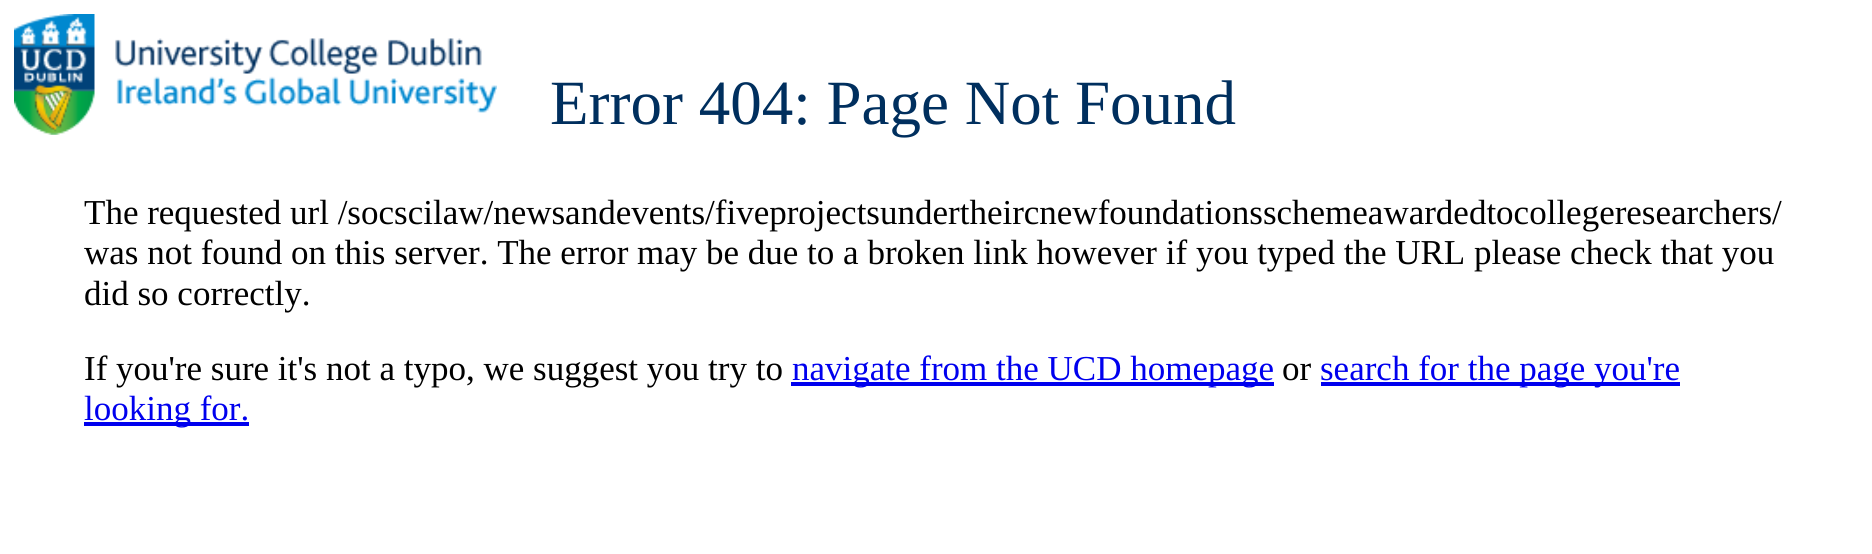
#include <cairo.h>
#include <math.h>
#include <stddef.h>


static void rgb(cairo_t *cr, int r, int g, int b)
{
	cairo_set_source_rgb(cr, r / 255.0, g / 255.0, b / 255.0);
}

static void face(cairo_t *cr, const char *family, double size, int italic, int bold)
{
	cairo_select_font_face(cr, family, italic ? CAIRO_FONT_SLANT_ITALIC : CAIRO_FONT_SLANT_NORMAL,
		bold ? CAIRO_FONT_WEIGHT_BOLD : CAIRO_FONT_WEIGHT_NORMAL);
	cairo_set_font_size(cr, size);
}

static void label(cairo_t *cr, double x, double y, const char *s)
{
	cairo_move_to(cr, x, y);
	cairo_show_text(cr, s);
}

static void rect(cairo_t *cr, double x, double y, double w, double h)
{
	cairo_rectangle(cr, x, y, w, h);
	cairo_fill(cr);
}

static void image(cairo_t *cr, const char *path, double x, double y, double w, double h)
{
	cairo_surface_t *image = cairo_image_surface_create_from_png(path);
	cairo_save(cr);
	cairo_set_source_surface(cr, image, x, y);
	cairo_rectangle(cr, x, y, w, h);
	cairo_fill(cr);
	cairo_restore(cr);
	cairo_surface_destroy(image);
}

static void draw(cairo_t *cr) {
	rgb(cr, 255, 255, 255);
	cairo_paint(cr);
	image(cr, "image0.png", 14, 14, 483, 121);
	face(cr, "Liberation Serif", 63, 0, 0);
	rgb(cr, 0, 47, 94);
	label(cr, 550, 124, "Error 404: Page Not Found");
	face(cr, "Liberation Serif", 35, 0, 0);
	rgb(cr, 0, 0, 0);
	label(cr, 84, 224, "The requested url /socscilaw/newsandevents/fiveprojectsundertheircnewfoundationsschemeawardedtocollegeresearchers/");
	label(cr, 84, 264, "was not found on this server. The error may be due to a broken link however if you typed the URL please check that you");
	label(cr, 84, 305, "did so correctly.");
	label(cr, 84, 380, "If you're sure it's not a typo, we suggest you try to");
	rgb(cr, 0, 0, 238);
	rect(cr, 791, 382, 483, 4);
	label(cr, 792, 380, "navigate from the UCD homepage");
	rgb(cr, 0, 0, 0);
	label(cr, 1282, 380, "or");
	rgb(cr, 0, 0, 238);
	rect(cr, 1321, 382, 359, 4);
	label(cr, 1320, 380, "search for the page you're");
	rect(cr, 84, 422, 165, 4);
	label(cr, 84, 420, "looking for.");
}

int main(void) {
	cairo_surface_t *surface = cairo_image_surface_create(CAIRO_FORMAT_RGB24, 1872, 554);
	cairo_t *cr = cairo_create(surface);
	cairo_font_options_t *options = cairo_font_options_create();
	cairo_font_options_set_hint_metrics(options, CAIRO_HINT_METRICS_OFF);
	cairo_font_options_set_hint_style(options, CAIRO_HINT_STYLE_NONE);
	cairo_set_font_options(cr, options);
	cairo_set_miter_limit(cr, 4);
	draw(cr);
	cairo_surface_write_to_png(surface, "render.png");
	cairo_font_options_destroy(options);
	cairo_destroy(cr);
	cairo_surface_destroy(surface);
	return 0;
}
